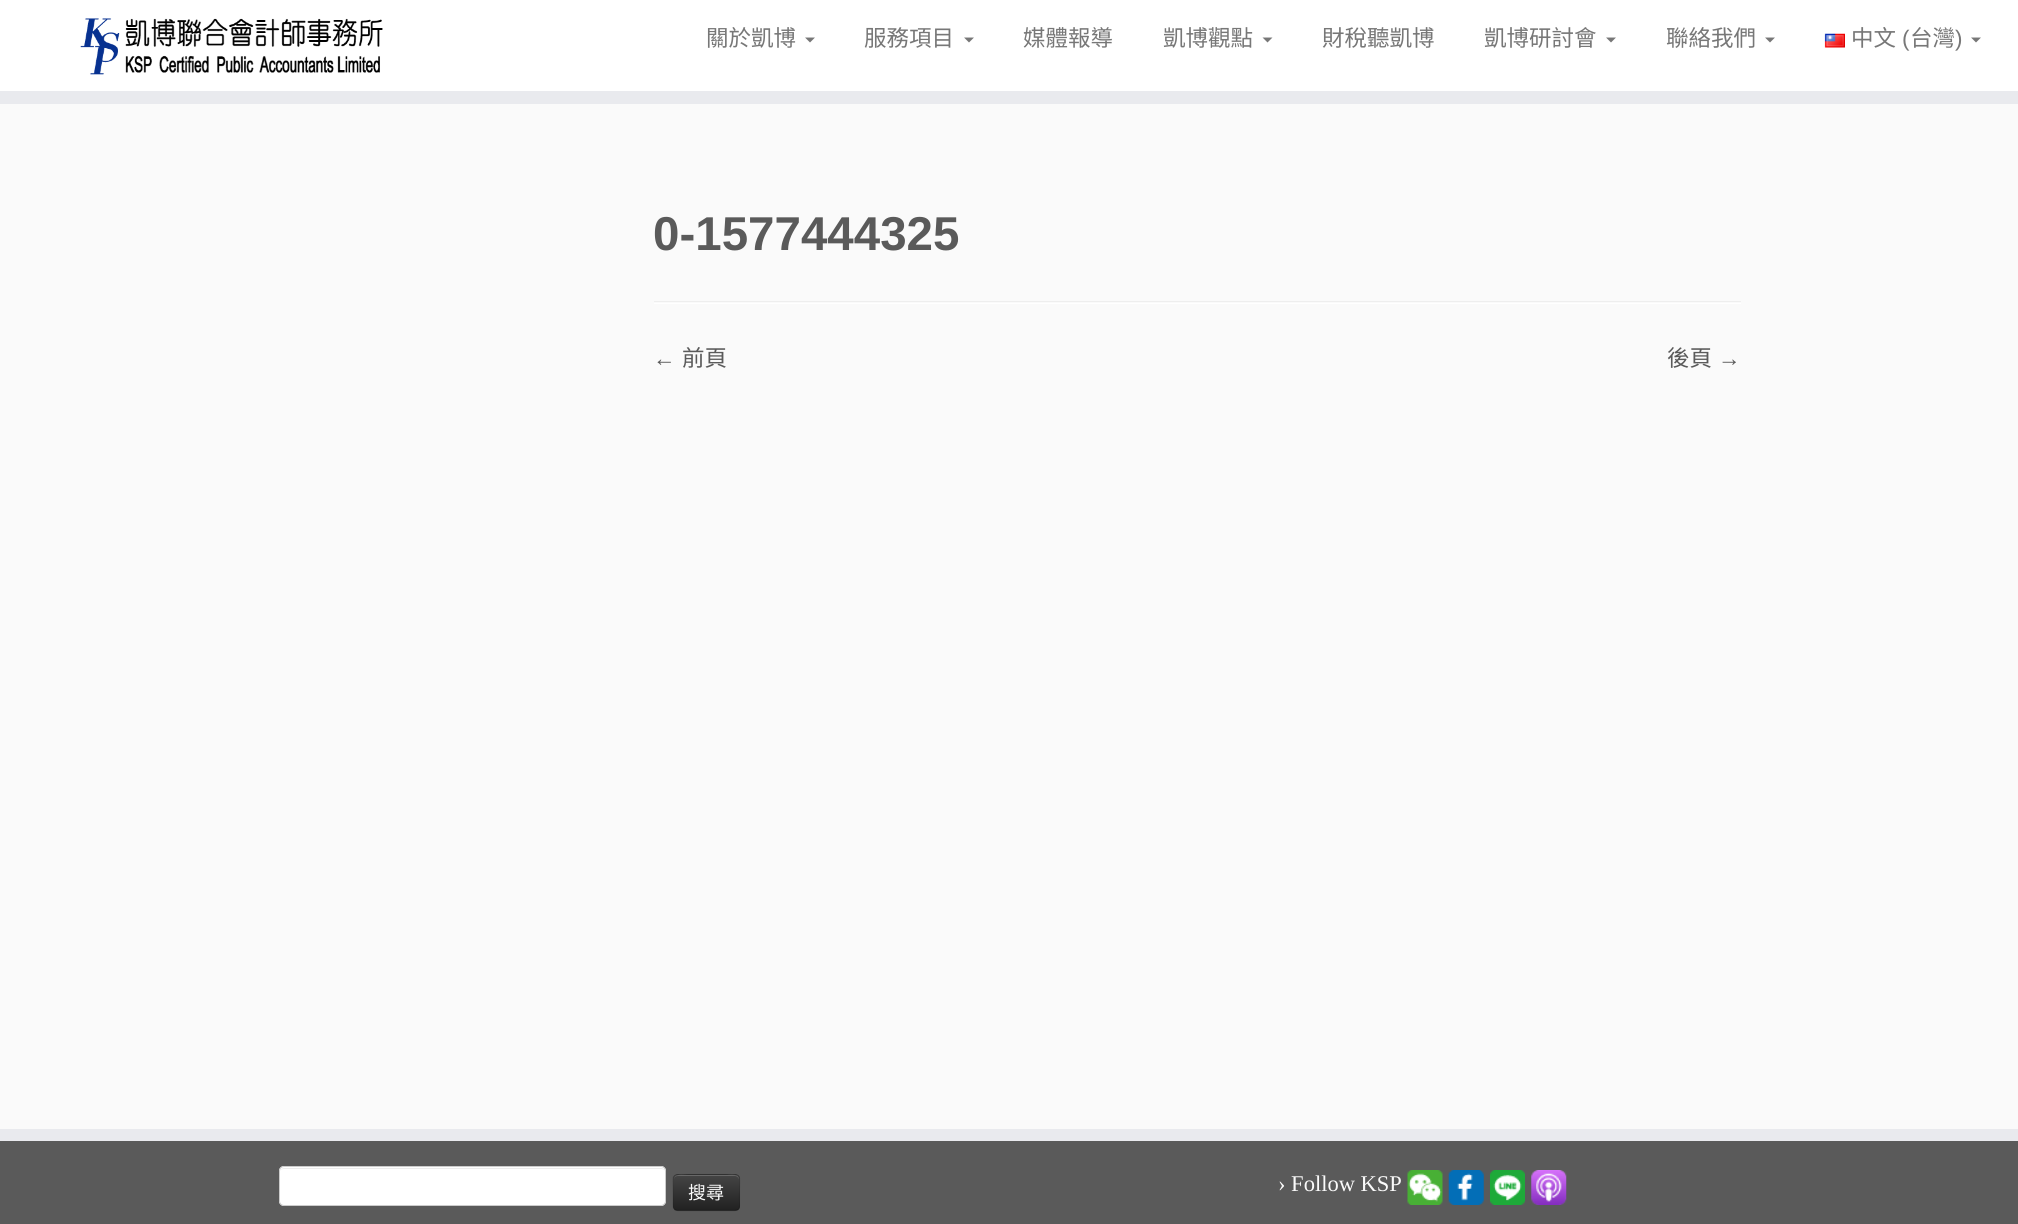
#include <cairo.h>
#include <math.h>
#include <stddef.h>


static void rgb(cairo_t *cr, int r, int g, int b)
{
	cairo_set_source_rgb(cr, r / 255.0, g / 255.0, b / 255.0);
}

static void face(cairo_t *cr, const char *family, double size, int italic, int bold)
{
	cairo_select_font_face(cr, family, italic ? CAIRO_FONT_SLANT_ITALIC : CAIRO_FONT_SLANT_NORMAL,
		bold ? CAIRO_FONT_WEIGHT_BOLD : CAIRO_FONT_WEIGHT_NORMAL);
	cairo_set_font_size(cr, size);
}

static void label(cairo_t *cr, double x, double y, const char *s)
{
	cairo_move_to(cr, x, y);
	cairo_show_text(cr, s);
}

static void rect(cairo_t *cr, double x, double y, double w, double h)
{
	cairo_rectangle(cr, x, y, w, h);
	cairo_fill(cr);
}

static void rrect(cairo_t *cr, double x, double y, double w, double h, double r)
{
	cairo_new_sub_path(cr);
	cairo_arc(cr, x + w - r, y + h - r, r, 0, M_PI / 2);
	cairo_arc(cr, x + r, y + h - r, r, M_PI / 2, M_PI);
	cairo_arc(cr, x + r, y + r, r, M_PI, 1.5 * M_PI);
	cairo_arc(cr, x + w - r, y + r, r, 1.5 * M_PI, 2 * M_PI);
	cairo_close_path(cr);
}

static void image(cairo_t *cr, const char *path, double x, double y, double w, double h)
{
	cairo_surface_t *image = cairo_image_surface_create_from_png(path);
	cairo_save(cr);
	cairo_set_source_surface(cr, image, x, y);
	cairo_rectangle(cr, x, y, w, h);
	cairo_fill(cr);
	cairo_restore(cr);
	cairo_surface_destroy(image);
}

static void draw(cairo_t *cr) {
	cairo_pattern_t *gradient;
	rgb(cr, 250, 250, 250);
	cairo_paint(cr);
	rgb(cr, 255, 255, 255);
	rect(cr, 0, 0, 2018, 91);
	rgb(cr, 233, 234, 238);
	rect(cr, 0, 91, 2018, 13);
	image(cr, "image0.png", 80, 18, 303, 57);
	face(cr, "Noto Sans CJK TC", 22.5, 0, 0);
	rgb(cr, 119, 119, 119);
	label(cr, 706, 46, "關於凱博");
	cairo_new_path(cr);
	cairo_move_to(cr, 805, 37.5);
	cairo_line_to(cr, 815, 37.5);
	cairo_line_to(cr, 810, 42.5);
	cairo_close_path(cr);
	cairo_fill(cr);
	label(cr, 864, 46, "服務項目");
	cairo_new_path(cr);
	cairo_move_to(cr, 964, 37.5);
	cairo_line_to(cr, 974, 37.5);
	cairo_line_to(cr, 969, 42.5);
	cairo_close_path(cr);
	cairo_fill(cr);
	label(cr, 1023, 46, "媒體報導");
	label(cr, 1163, 46, "凱博觀點");
	cairo_new_path(cr);
	cairo_move_to(cr, 1262.5, 37.5);
	cairo_line_to(cr, 1272.5, 37.5);
	cairo_line_to(cr, 1267.5, 42.5);
	cairo_close_path(cr);
	cairo_fill(cr);
	label(cr, 1322, 46, "財稅聽凱博");
	label(cr, 1484, 46, "凱博研討會");
	cairo_new_path(cr);
	cairo_move_to(cr, 1606, 37.5);
	cairo_line_to(cr, 1616, 37.5);
	cairo_line_to(cr, 1611, 42.5);
	cairo_close_path(cr);
	cairo_fill(cr);
	label(cr, 1666, 46, "聯絡我們");
	cairo_new_path(cr);
	cairo_move_to(cr, 1765, 37.5);
	cairo_line_to(cr, 1775, 37.5);
	cairo_line_to(cr, 1770, 42.5);
	cairo_close_path(cr);
	cairo_fill(cr);
	image(cr, "image1.png", 1824, 33, 21, 15);
	label(cr, 1851, 46, "中文");
	face(cr, "Liberation Sans", 22.5, 0, 0);
	label(cr, 1902, 46, "(");
	face(cr, "Noto Sans CJK TC", 22.5, 0, 0);
	label(cr, 1910, 46, "台灣");
	face(cr, "Liberation Sans", 22.5, 0, 0);
	label(cr, 1955, 46, ")");
	cairo_new_path(cr);
	cairo_move_to(cr, 1971, 37.5);
	cairo_line_to(cr, 1981, 37.5);
	cairo_line_to(cr, 1976, 42.5);
	cairo_close_path(cr);
	cairo_fill(cr);
	face(cr, "Liberation Sans", 47.5, 0, 1);
	rgb(cr, 90, 90, 90);
	label(cr, 653, 250, "0-1577444325");
	rgb(cr, 238, 238, 238);
	rect(cr, 654, 301, 1087, 1);
	rgb(cr, 255, 255, 255);
	rect(cr, 654, 303, 1087, 1);
	face(cr, "Liberation Sans", 22.5, 0, 0);
	rgb(cr, 90, 90, 90);
	label(cr, 653, 366, "←");
	face(cr, "Noto Sans CJK TC", 22.5, 0, 0);
	label(cr, 682, 366, "前頁");
	label(cr, 1667, 366, "後頁");
	face(cr, "Liberation Sans", 22.5, 0, 0);
	label(cr, 1718, 366, "→");
	rect(cr, 0, 1141, 2018, 83);
	rgb(cr, 233, 234, 238);
	rect(cr, 0, 1129, 2018, 12);
	rgb(cr, 255, 255, 255);
	rrect(cr, 279, 1166, 387, 40, 5);
	cairo_fill(cr);
	rgb(cr, 236, 236, 236);
	cairo_new_path(cr);
	cairo_move_to(cr, 284, 1169);
	cairo_line_to(cr, 661, 1169);
	cairo_curve_to(cr, 663, 1169, 665, 1170, 665, 1172);
	cairo_curve_to(cr, 665, 1170, 663, 1168, 661, 1168);
	cairo_line_to(cr, 284, 1168);
	cairo_curve_to(cr, 282, 1168, 280, 1170, 280, 1172);
	cairo_curve_to(cr, 280, 1170, 282, 1169, 284, 1169);
	cairo_close_path(cr);
	cairo_fill(cr);
	rrect(cr, 279.5, 1166.5, 386, 39, 4.5);
	rgb(cr, 204, 204, 204);
	cairo_set_line_width(cr, 1);
	cairo_stroke(cr);
	rgb(cr, 54, 54, 54);
	rrect(cr, 673, 1174, 67, 37, 5);
	cairo_fill(cr);
	cairo_save(cr);
	rrect(cr, 673, 1174, 67, 37, 5);
	cairo_clip(cr);
	gradient = cairo_pattern_create_linear(706, 1175, 706, 1210);
	cairo_pattern_add_color_stop_rgba(gradient, 0, 0.267, 0.267, 0.267, 1);
	cairo_pattern_add_color_stop_rgba(gradient, 1, 0.133, 0.133, 0.133, 1);
	cairo_set_source(cr, gradient);
	cairo_pattern_destroy(gradient);
	rect(cr, 673, 1175, 67, 35);
	cairo_restore(cr);
	rgb(cr, 105, 105, 105);
	cairo_new_path(cr);
	cairo_move_to(cr, 678, 1176);
	cairo_line_to(cr, 735, 1176);
	cairo_curve_to(cr, 737, 1176, 739, 1178, 739, 1180);
	cairo_curve_to(cr, 739, 1173, 731, 1175, 726, 1175);
	cairo_line_to(cr, 688, 1175);
	cairo_curve_to(cr, 682, 1175, 674, 1173, 674, 1180);
	cairo_curve_to(cr, 674, 1178, 675, 1176, 678, 1176);
	cairo_close_path(cr);
	cairo_fill(cr);
	cairo_new_path(cr);
	cairo_move_to(cr, 738, 1209.5);
	cairo_curve_to(cr, 737.5, 1210, 736, 1210.5, 735, 1210.5);
	cairo_line_to(cr, 677.5, 1210.5);
	cairo_curve_to(cr, 676.5, 1210.5, 675, 1210, 674.5, 1209.5);
	cairo_set_source_rgba(cr, 0, 0, 0, 0.25);
	cairo_set_line_width(cr, 1.2);
	cairo_stroke(cr);
	cairo_new_path(cr);
	cairo_move_to(cr, 674.5, 1209.5);
	cairo_curve_to(cr, 672.5, 1207.5, 673, 1204, 673, 1201.5);
	cairo_line_to(cr, 673, 1192.5);
	cairo_curve_to(cr, 673, 1174.5, 669.5, 1174.5, 687, 1174.5);
	cairo_line_to(cr, 725.5, 1174.5);
	cairo_curve_to(cr, 743, 1174.5, 739.5, 1174.5, 739.5, 1192.5);
	cairo_line_to(cr, 739.5, 1201.5);
	cairo_curve_to(cr, 739.5, 1204, 740, 1207.5, 738, 1209.5);
	cairo_set_source_rgba(cr, 0, 0, 0, 0.1);
	cairo_stroke(cr);
	face(cr, "Noto Sans CJK TC", 18, 0, 0);
	rgb(cr, 250, 250, 250);
	label(cr, 688, 1199, "搜尋");
	face(cr, "Liberation Serif", 22.5, 0, 0);
	label(cr, 1278, 1191, "› Follow KSP");
	image(cr, "image2.png", 1407, 1170, 36, 35);
	image(cr, "image3.png", 1448, 1170, 36, 35);
	image(cr, "image4.png", 1490, 1170, 35, 35);
	image(cr, "image5.png", 1531, 1170, 36, 35);
}

int main(void) {
	cairo_surface_t *surface = cairo_image_surface_create(CAIRO_FORMAT_RGB24, 2018, 1224);
	cairo_t *cr = cairo_create(surface);
	cairo_font_options_t *options = cairo_font_options_create();
	cairo_font_options_set_hint_metrics(options, CAIRO_HINT_METRICS_OFF);
	cairo_font_options_set_hint_style(options, CAIRO_HINT_STYLE_NONE);
	cairo_set_font_options(cr, options);
	cairo_set_miter_limit(cr, 4);
	draw(cr);
	cairo_surface_write_to_png(surface, "render.png");
	cairo_font_options_destroy(options);
	cairo_destroy(cr);
	cairo_surface_destroy(surface);
	return 0;
}
